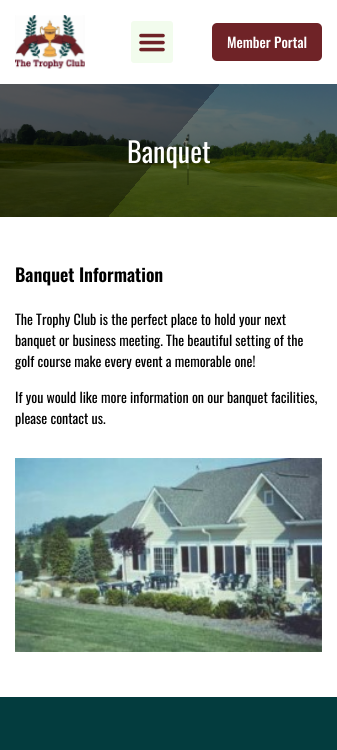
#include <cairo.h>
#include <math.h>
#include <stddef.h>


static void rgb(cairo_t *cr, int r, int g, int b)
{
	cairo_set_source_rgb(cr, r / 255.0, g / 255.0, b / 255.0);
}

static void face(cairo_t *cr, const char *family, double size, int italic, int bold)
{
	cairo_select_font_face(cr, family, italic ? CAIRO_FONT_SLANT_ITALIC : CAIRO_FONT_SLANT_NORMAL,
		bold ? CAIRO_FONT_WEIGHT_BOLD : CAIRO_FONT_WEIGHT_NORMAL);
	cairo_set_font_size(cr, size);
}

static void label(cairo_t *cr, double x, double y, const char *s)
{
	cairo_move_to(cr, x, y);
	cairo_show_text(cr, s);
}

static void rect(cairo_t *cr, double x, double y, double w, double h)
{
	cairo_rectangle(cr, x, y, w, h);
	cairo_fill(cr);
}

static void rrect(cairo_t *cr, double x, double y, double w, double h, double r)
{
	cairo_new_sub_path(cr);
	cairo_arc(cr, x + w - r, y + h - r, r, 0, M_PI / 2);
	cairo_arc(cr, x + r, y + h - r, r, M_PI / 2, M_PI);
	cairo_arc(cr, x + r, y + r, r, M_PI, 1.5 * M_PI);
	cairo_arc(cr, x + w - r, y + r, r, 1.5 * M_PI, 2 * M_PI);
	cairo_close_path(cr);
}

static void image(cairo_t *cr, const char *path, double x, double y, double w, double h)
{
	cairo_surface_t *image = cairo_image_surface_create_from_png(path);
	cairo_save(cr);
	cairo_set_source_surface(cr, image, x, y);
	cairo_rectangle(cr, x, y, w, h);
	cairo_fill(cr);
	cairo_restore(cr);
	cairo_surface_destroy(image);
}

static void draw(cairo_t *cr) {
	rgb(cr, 255, 255, 255);
	cairo_paint(cr);
	image(cr, "image0.png", 15, 15, 70, 54);
	rgb(cr, 242, 252, 237);
	rrect(cr, 131, 21, 42, 42, 3);
	cairo_fill(cr);
	image(cr, "image1.png", 139, 33, 26, 19);
	rgb(cr, 111, 35, 39);
	rrect(cr, 212, 23, 110, 38, 5);
	cairo_fill(cr);
	face(cr, "Oswald Medium", 14, 0, 0);
	rgb(cr, 255, 255, 255);
	label(cr, 227, 48, "Member Portal");
	image(cr, "image2.png", 0, 84, 337, 133);
	face(cr, "Oswald", 28, 0, 0);
	label(cr, 127, 163, "Banquet");
	face(cr, "Oswald SemiBold", 18, 0, 0);
	rgb(cr, 0, 0, 0);
	label(cr, 15, 282, "Banquet Information");
	face(cr, "Oswald", 14, 0, 0);
	label(cr, 15, 325, "The Trophy Club is the perfect place to hold your next");
	label(cr, 15, 346, "banquet or business meeting. The beautiful setting of the");
	label(cr, 15, 367, "golf course make every event a memorable one!");
	label(cr, 15, 403, "If you would like more information on our banquet facilities,");
	label(cr, 15, 424, "please contact us.");
	image(cr, "image3.png", 15, 458, 307, 194);
	rgb(cr, 3, 60, 62);
	rect(cr, 0, 697, 337, 53);
}

int main(void) {
	cairo_surface_t *surface = cairo_image_surface_create(CAIRO_FORMAT_RGB24, 337, 750);
	cairo_t *cr = cairo_create(surface);
	cairo_font_options_t *options = cairo_font_options_create();
	cairo_font_options_set_hint_metrics(options, CAIRO_HINT_METRICS_OFF);
	cairo_font_options_set_hint_style(options, CAIRO_HINT_STYLE_NONE);
	cairo_set_font_options(cr, options);
	cairo_set_miter_limit(cr, 4);
	draw(cr);
	cairo_surface_write_to_png(surface, "render.png");
	cairo_font_options_destroy(options);
	cairo_destroy(cr);
	cairo_surface_destroy(surface);
	return 0;
}
